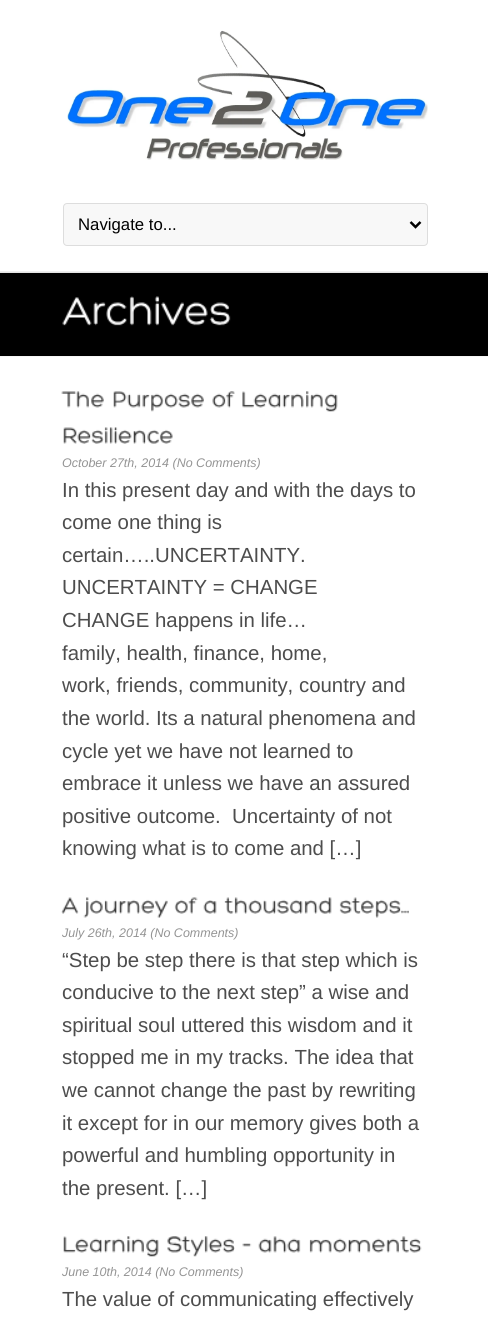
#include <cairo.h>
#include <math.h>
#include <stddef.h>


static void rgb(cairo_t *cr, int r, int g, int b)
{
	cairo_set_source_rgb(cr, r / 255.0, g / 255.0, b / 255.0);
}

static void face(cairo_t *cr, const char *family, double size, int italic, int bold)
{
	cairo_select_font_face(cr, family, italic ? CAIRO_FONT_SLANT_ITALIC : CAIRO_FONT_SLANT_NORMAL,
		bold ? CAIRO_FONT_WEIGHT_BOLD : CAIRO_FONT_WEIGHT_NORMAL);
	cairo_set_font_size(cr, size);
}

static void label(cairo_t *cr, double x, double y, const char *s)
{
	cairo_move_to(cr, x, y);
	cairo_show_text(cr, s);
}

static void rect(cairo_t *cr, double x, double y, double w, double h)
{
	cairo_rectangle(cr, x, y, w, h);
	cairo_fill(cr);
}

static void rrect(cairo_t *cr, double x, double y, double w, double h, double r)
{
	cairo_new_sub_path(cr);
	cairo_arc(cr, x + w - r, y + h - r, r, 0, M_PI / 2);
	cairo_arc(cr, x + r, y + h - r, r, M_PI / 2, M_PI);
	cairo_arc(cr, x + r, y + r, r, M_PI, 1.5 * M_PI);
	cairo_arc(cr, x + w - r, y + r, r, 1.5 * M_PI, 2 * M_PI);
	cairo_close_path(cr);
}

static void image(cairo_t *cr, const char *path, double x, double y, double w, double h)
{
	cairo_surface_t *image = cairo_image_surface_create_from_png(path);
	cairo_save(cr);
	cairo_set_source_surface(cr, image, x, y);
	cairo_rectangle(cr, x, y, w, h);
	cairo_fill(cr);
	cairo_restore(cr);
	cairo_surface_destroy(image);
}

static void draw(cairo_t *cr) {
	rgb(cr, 255, 255, 255);
	cairo_paint(cr);
	rgb(cr, 238, 238, 238);
	rect(cr, 0, 271, 488, 1);
	image(cr, "image0.png", 67, 30, 361, 130);
	rgb(cr, 248, 248, 248);
	rrect(cr, 63.5, 203.5, 364, 42, 3.5);
	cairo_fill_preserve(cr);
	rgb(cr, 221, 221, 221);
	cairo_set_line_width(cr, 1);
	cairo_stroke(cr);
	cairo_new_path(cr);
	cairo_move_to(cr, 410.5, 222);
	cairo_line_to(cr, 415.5, 227);
	cairo_line_to(cr, 420.5, 222);
	rgb(cr, 0, 0, 0);
	cairo_set_line_width(cr, 2.5);
	cairo_stroke(cr);
	face(cr, "Liberation Sans", 16.75, 0, 0);
	label(cr, 78, 230, "Navigate to...");
	rect(cr, 0, 273, 488, 83);
	rgb(cr, 228, 228, 228);
	rect(cr, 0, 272, 488, 1);
	image(cr, "image1.png", 62, 296, 169, 30);
	rgb(cr, 247, 247, 247);
	rect(cr, 0, 356, 488, 1);
	image(cr, "image2.png", 61, 391, 43, 17);
	image(cr, "image3.png", 113, 391, 91, 21);
	image(cr, "image4.png", 212, 391, 23, 17);
	image(cr, "image5.png", 242, 391, 96, 21);
	image(cr, "image6.png", 63, 427, 110, 17);
	face(cr, "Liberation Sans", 12.5, 1, 0);
	rgb(cr, 148, 148, 148);
	label(cr, 62, 467, "October 27th, 2014 (No Comments)");
	face(cr, "Liberation Sans", 20.4, 0, 0);
	rgb(cr, 77, 77, 77);
	label(cr, 62, 497, "In this present day and with the days to");
	label(cr, 62, 529, "come one thing is");
	label(cr, 62, 562, "certain…..UNCERTAINTY.");
	label(cr, 62, 594, "UNCERTAINTY = CHANGE");
	label(cr, 62, 627, "CHANGE happens in life…");
	label(cr, 62, 660, "family, health, finance, home,");
	label(cr, 62, 692, "work, friends, community, country and");
	label(cr, 62, 725, "the world. Its a natural phenomena and");
	label(cr, 62, 758, "cycle yet we have not learned to");
	label(cr, 62, 790, "embrace it unless we have an assured");
	label(cr, 62, 823, "positive outcome.  Uncertainty of not");
	label(cr, 62, 855, "knowing what is to come and […]");
	image(cr, "image7.png", 61, 897, 18, 17);
	image(cr, "image8.png", 83, 897, 85, 21);
	image(cr, "image9.png", 174, 897, 24, 17);
	image(cr, "image10.png", 203, 900, 14, 14);
	image(cr, "image11.png", 224, 897, 108, 17);
	image(cr, "image12.png", 339, 897, 70, 21);
	face(cr, "Liberation Sans", 12.5, 1, 0);
	rgb(cr, 148, 148, 148);
	label(cr, 62, 937, "July 26th, 2014 (No Comments)");
	face(cr, "Liberation Sans", 20.4, 0, 0);
	rgb(cr, 77, 77, 77);
	label(cr, 62, 967, "“Step be step there is that step which is");
	label(cr, 62, 999, "conducive to the next step” a wise and");
	label(cr, 62, 1032, "spiritual soul uttered this wisdom and it");
	label(cr, 62, 1064, "stopped me in my tracks. The idea that");
	label(cr, 62, 1097, "we cannot change the past by rewriting");
	label(cr, 62, 1130, "it except for in our memory gives both a");
	label(cr, 62, 1162, "powerful and humbling opportunity in");
	label(cr, 62, 1195, "the present. […]");
	image(cr, "image13.png", 63, 1236, 96, 21);
	image(cr, "image14.png", 167, 1236, 68, 21);
	image(cr, "image15.png", 242, 1243, 10, 4);
	image(cr, "image16.png", 258, 1236, 43, 17);
	image(cr, "image17.png", 309, 1236, 113, 17);
	face(cr, "Liberation Sans", 12.5, 1, 0);
	rgb(cr, 148, 148, 148);
	label(cr, 62, 1276, "June 10th, 2014 (No Comments)");
	face(cr, "Liberation Sans", 20.4, 0, 0);
	rgb(cr, 77, 77, 77);
	label(cr, 62, 1306, "The value of communicating effectively");
}

int main(void) {
	cairo_surface_t *surface = cairo_image_surface_create(CAIRO_FORMAT_RGB24, 488, 1334);
	cairo_t *cr = cairo_create(surface);
	cairo_font_options_t *options = cairo_font_options_create();
	cairo_font_options_set_hint_metrics(options, CAIRO_HINT_METRICS_OFF);
	cairo_font_options_set_hint_style(options, CAIRO_HINT_STYLE_NONE);
	cairo_set_font_options(cr, options);
	cairo_set_miter_limit(cr, 4);
	draw(cr);
	cairo_surface_write_to_png(surface, "render.png");
	cairo_font_options_destroy(options);
	cairo_destroy(cr);
	cairo_surface_destroy(surface);
	return 0;
}
